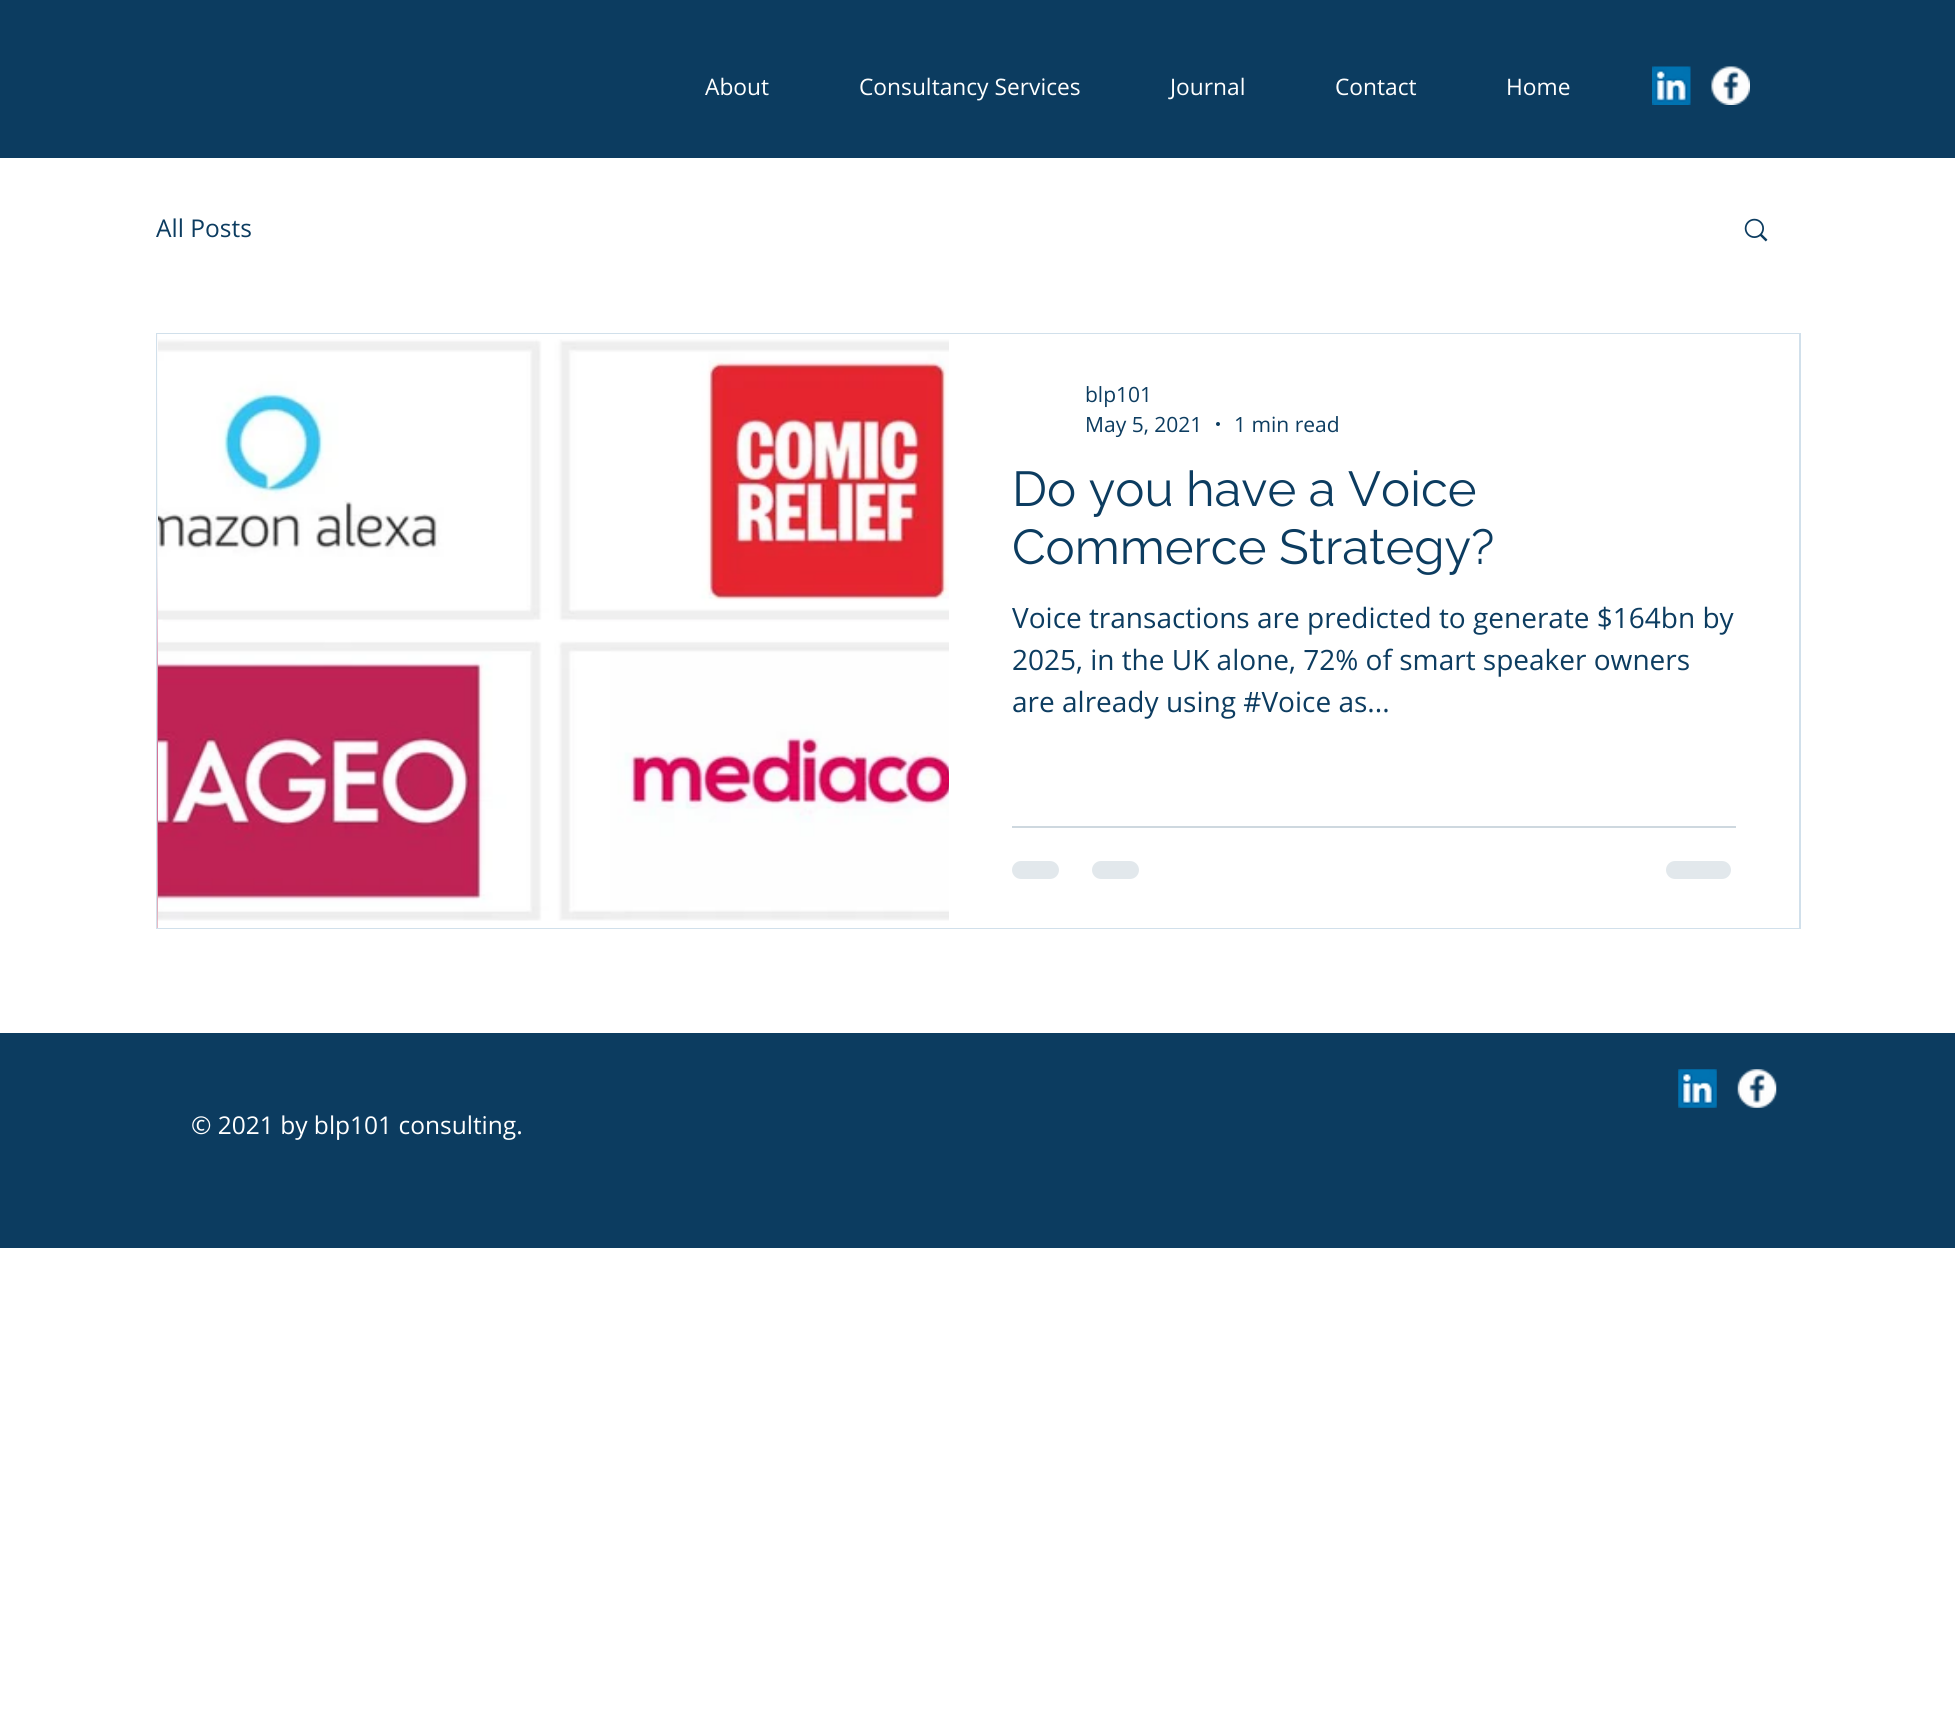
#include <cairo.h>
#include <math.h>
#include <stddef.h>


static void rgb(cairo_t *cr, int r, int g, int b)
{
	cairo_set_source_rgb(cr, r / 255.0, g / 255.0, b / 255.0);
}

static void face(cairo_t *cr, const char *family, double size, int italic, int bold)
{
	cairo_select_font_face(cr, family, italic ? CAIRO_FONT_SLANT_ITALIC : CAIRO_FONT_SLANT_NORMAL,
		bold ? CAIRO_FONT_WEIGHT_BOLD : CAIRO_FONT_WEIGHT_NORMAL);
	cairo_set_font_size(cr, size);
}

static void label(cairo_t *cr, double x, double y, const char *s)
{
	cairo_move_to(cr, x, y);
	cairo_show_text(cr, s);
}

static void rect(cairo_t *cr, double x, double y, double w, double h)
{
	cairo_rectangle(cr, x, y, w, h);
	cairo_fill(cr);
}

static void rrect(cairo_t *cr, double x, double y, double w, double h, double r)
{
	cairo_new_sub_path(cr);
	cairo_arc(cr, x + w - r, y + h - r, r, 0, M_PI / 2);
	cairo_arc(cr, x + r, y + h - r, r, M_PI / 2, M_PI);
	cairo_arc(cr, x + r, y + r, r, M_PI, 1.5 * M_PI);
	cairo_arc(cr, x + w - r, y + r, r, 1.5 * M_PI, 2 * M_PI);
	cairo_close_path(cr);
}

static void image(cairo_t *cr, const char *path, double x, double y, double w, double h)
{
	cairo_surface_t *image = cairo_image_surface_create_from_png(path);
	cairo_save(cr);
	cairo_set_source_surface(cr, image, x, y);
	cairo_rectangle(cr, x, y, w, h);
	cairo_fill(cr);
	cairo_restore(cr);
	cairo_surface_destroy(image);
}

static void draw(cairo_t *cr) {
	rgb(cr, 255, 255, 255);
	cairo_paint(cr);
	rgb(cr, 12, 60, 96);
	rect(cr, 0, 0, 1955, 158);
	face(cr, "Open Sans", 22.75, 0, 0);
	rgb(cr, 255, 255, 255);
	label(cr, 705, 95, "About");
	label(cr, 859, 95, "Consultancy Services");
	label(cr, 1170, 95, "Journal");
	label(cr, 1335, 95, "Contact");
	label(cr, 1506, 95, "Home");
	image(cr, "image0.png", 1652, 66, 39, 39);
	image(cr, "image1.png", 1711, 66, 39, 39);
	face(cr, "Open Sans", 24.5, 0, 0);
	rgb(cr, 12, 60, 96);
	label(cr, 156, 237, "All Posts");
	image(cr, "image2.png", 1744, 218, 24, 24);
	cairo_rectangle(cr, 157, 334, 1643, 594);
	rgb(cr, 209, 224, 235);
	cairo_stroke(cr);
	image(cr, "image3.png", 157, 334, 1, 594);
	image(cr, "image4.png", 158, 334, 791, 594);
	rgb(cr, 255, 255, 255);
	rect(cr, 949, 334, 850, 594);
	face(cr, "Open Sans", 21, 0, 0);
	rgb(cr, 12, 60, 96);
	label(cr, 1085, 402, "blp101");
	label(cr, 1085, 432, "May 5, 2021");
	cairo_new_path(cr);
	cairo_arc(cr, 1218, 424, 2, 0, 2 * M_PI);
	cairo_fill(cr);
	label(cr, 1234, 432, "1 min read");
	face(cr, "Raleway", 49, 0, 0);
	label(cr, 1012, 506, "Do you have a Voice");
	label(cr, 1012, 564, "Commerce Strategy?");
	face(cr, "Open Sans", 28, 0, 0);
	label(cr, 1012, 628, "Voice transactions are predicted to generate $164bn by");
	label(cr, 1012, 670, "2025, in the UK alone, 72% of smart speaker owners");
	label(cr, 1012, 712, "are already using #Voice as...");
	rgb(cr, 206, 216, 223);
	rect(cr, 1012, 826, 724, 2);
	rgb(cr, 226, 232, 236);
	rrect(cr, 1012, 861, 47, 18, 9);
	cairo_fill(cr);
	rrect(cr, 1092, 861, 47, 18, 9);
	cairo_fill(cr);
	rrect(cr, 1666, 861, 65, 18, 9);
	cairo_fill(cr);
	rgb(cr, 12, 60, 96);
	rect(cr, 0, 1033, 1955, 215);
	image(cr, "image5.png", 1678, 1069, 39, 39);
	image(cr, "image6.png", 1737, 1069, 40, 39);
	face(cr, "Open Sans", 24.5, 0, 0);
	rgb(cr, 255, 255, 255);
	label(cr, 191, 1134, "© 2021 by blp101 consulting.");
}

int main(void) {
	cairo_surface_t *surface = cairo_image_surface_create(CAIRO_FORMAT_RGB24, 1955, 1724);
	cairo_t *cr = cairo_create(surface);
	cairo_font_options_t *options = cairo_font_options_create();
	cairo_font_options_set_hint_metrics(options, CAIRO_HINT_METRICS_OFF);
	cairo_font_options_set_hint_style(options, CAIRO_HINT_STYLE_NONE);
	cairo_set_font_options(cr, options);
	cairo_set_miter_limit(cr, 4);
	draw(cr);
	cairo_surface_write_to_png(surface, "render.png");
	cairo_font_options_destroy(options);
	cairo_destroy(cr);
	cairo_surface_destroy(surface);
	return 0;
}
